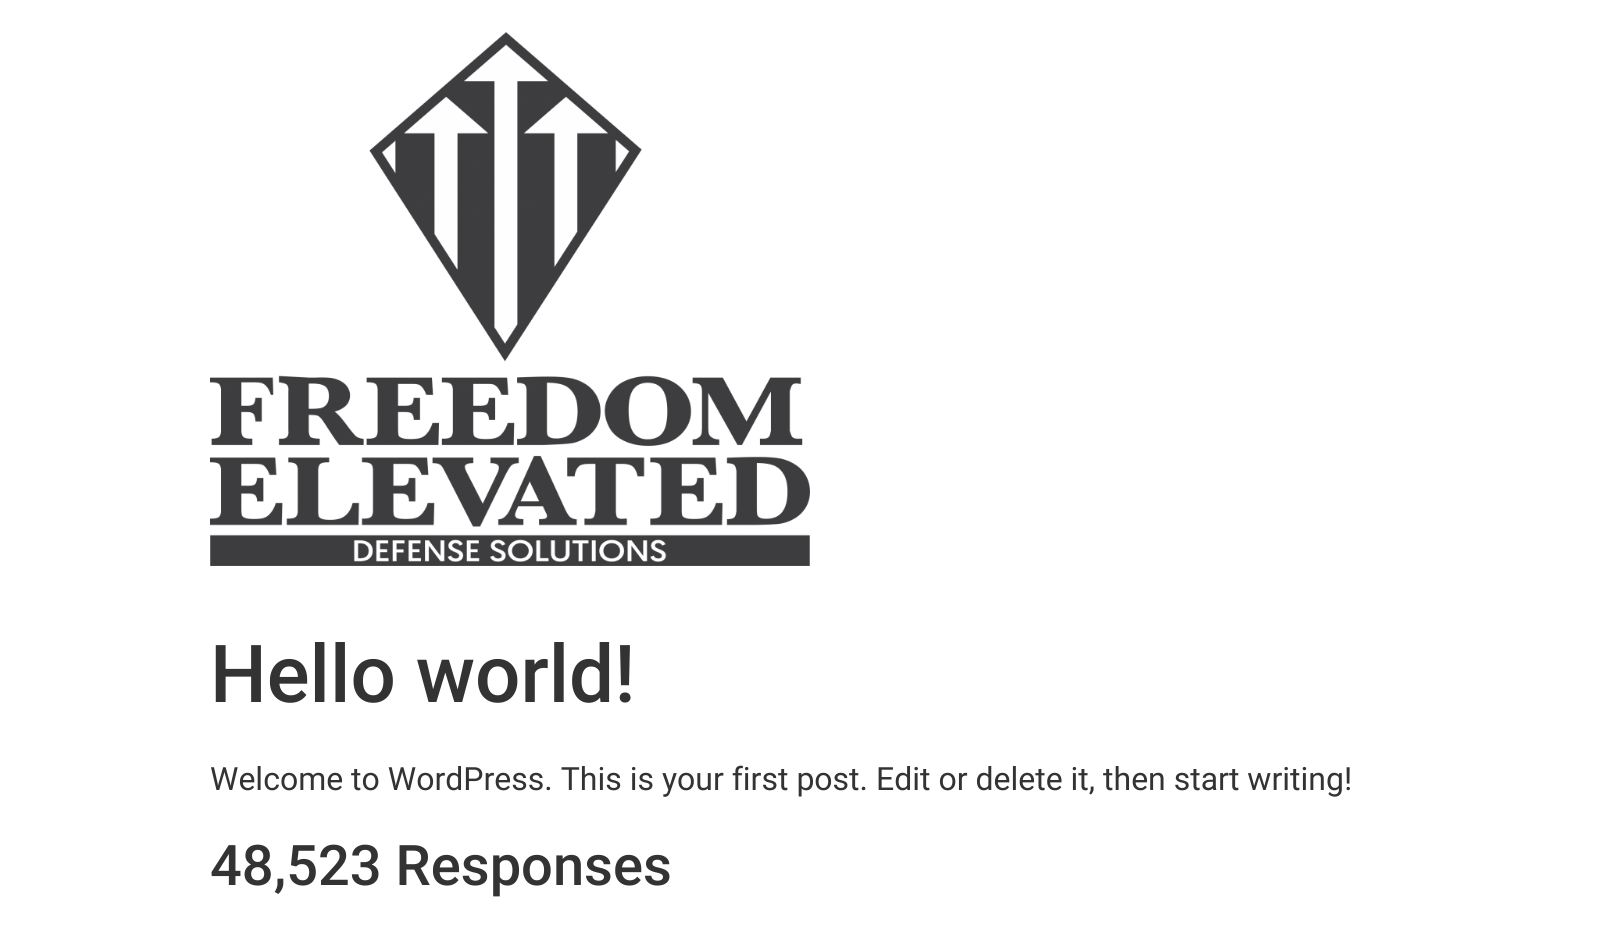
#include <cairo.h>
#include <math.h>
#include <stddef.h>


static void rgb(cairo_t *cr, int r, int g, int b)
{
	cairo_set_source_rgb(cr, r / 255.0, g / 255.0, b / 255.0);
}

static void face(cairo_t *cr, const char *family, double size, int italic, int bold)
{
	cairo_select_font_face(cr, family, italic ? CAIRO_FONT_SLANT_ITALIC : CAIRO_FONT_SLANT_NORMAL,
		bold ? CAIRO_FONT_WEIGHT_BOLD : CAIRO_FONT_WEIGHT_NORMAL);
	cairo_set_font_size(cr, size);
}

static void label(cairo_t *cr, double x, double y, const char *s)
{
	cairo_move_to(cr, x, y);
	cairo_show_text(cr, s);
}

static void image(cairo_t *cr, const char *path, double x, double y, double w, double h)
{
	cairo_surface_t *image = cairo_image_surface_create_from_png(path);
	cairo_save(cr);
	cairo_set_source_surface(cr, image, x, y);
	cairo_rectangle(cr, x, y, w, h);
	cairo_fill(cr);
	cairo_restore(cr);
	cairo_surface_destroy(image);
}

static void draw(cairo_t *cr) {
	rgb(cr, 255, 255, 255);
	cairo_paint(cr);
	image(cr, "image0.png", 210, 32, 600, 534);
	face(cr, "Roboto Medium", 80, 0, 0);
	rgb(cr, 51, 51, 51);
	label(cr, 210, 702, "Hello world!");
	face(cr, "Roboto", 32, 0, 0);
	label(cr, 210, 790, "Welcome to WordPress. This is your first post. Edit or delete it, then start writing!");
	face(cr, "Roboto Medium", 56, 0, 0);
	label(cr, 210, 885, "48,523 Responses");
}

int main(void) {
	cairo_surface_t *surface = cairo_image_surface_create(CAIRO_FORMAT_RGB24, 1620, 950);
	cairo_t *cr = cairo_create(surface);
	cairo_font_options_t *options = cairo_font_options_create();
	cairo_font_options_set_hint_metrics(options, CAIRO_HINT_METRICS_OFF);
	cairo_font_options_set_hint_style(options, CAIRO_HINT_STYLE_NONE);
	cairo_set_font_options(cr, options);
	cairo_set_miter_limit(cr, 4);
	draw(cr);
	cairo_surface_write_to_png(surface, "render.png");
	cairo_font_options_destroy(options);
	cairo_destroy(cr);
	cairo_surface_destroy(surface);
	return 0;
}
